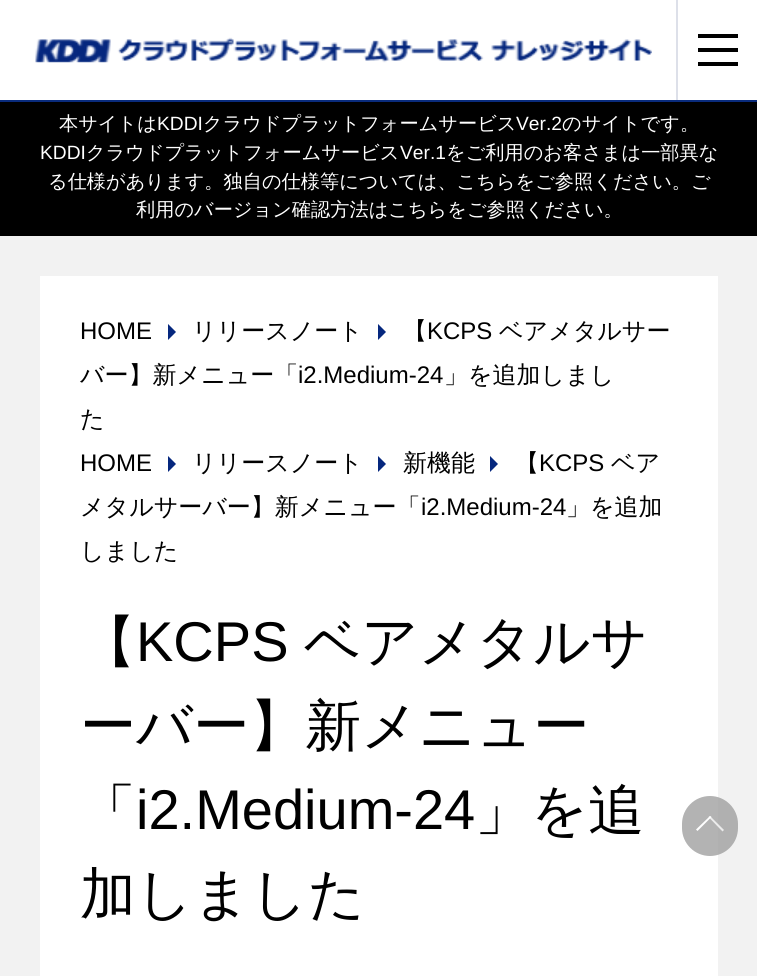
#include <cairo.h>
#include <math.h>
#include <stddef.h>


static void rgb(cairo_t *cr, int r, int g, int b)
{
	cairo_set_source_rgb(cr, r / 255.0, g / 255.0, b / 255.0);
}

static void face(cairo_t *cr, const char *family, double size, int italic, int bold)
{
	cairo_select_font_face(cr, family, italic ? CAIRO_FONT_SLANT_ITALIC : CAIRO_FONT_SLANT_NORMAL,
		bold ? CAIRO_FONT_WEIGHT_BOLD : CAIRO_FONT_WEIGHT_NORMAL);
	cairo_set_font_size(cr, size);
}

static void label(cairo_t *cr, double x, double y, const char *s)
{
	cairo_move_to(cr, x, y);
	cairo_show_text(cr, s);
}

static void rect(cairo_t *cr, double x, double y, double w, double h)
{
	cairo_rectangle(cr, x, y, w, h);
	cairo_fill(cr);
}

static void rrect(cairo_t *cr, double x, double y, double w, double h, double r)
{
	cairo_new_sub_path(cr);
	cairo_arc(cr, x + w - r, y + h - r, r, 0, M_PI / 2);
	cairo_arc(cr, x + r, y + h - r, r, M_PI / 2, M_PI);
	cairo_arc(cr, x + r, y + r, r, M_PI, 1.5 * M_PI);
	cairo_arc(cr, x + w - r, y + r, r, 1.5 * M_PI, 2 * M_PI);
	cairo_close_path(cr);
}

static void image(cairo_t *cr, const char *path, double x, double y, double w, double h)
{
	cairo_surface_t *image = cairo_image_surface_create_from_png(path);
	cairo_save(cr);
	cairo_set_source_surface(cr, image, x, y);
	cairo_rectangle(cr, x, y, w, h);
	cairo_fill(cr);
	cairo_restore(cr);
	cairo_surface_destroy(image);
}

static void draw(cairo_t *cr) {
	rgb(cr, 242, 242, 242);
	cairo_paint(cr);
	rgb(cr, 255, 255, 255);
	rect(cr, 0, 0, 757, 100);
	rgb(cr, 9, 43, 124);
	rect(cr, 0, 100, 757, 2);
	image(cr, "image0.png", 35, 37, 617, 26);
	rgb(cr, 221, 224, 233);
	rect(cr, 676, 0, 2, 100);
	rgb(cr, 0, 0, 0);
	rect(cr, 698, 34, 40, 4);
	rect(cr, 698, 48, 40, 4);
	rect(cr, 698, 62, 40, 4);
	rect(cr, 0, 102, 757, 134);
	face(cr, "WenQuanYi Zen Hei Medium", 19.2, 0, 0);
	rgb(cr, 255, 255, 255);
	label(cr, 59, 130, "本サイトは");
	face(cr, "Liberation Sans", 19.2, 0, 0);
	label(cr, 157, 130, "KDDI");
	face(cr, "WenQuanYi Zen Hei Medium", 19.2, 0, 0);
	label(cr, 203, 130, "クラウドプラットフォームサービス");
	face(cr, "Liberation Sans", 19.2, 0, 0);
	label(cr, 516, 130, "Ver.2");
	face(cr, "WenQuanYi Zen Hei Medium", 19.2, 0, 0);
	label(cr, 562, 130, "のサイトです。");
	face(cr, "Liberation Sans", 19.2, 0, 0);
	label(cr, 40, 159, "KDDI");
	face(cr, "WenQuanYi Zen Hei Medium", 19.2, 0, 0);
	label(cr, 86, 159, "クラウドプラットフォームサービス");
	face(cr, "Liberation Sans", 19.2, 0, 0);
	label(cr, 400, 159, "Ver.1");
	face(cr, "WenQuanYi Zen Hei Medium", 19.2, 0, 0);
	label(cr, 446, 159, "をご利用のお客さまは一部異な");
	label(cr, 48, 188, "る仕様があります。独自の仕様等については、こちらをご参照ください。ご");
	label(cr, 136, 216, "利用のバージョン確認方法はこちらをご参照ください。");
	rect(cr, 40, 276, 678, 700);
	face(cr, "Liberation Sans", 24, 0, 0);
	rgb(cr, 0, 0, 0);
	label(cr, 80, 339, "HOME");
	rgb(cr, 5, 39, 126);
	cairo_new_path(cr);
	cairo_move_to(cr, 168, 340);
	cairo_line_to(cr, 168, 324);
	cairo_line_to(cr, 176, 332);
	cairo_close_path(cr);
	cairo_fill(cr);
	face(cr, "WenQuanYi Zen Hei Medium", 24, 0, 0);
	rgb(cr, 0, 0, 0);
	label(cr, 192, 339, "リリースノート");
	rgb(cr, 5, 39, 126);
	cairo_new_path(cr);
	cairo_move_to(cr, 378, 340);
	cairo_line_to(cr, 378, 324);
	cairo_line_to(cr, 386, 332);
	cairo_close_path(cr);
	cairo_fill(cr);
	rgb(cr, 0, 0, 0);
	label(cr, 403, 339, "【");
	face(cr, "Liberation Sans", 24, 0, 0);
	label(cr, 427, 339, "KCPS");
	face(cr, "WenQuanYi Zen Hei Medium", 24, 0, 0);
	label(cr, 499, 339, "ベアメタルサー");
	label(cr, 80, 383, "バー】新メニュー「");
	face(cr, "Liberation Sans", 24, 0, 0);
	label(cr, 298, 383, "i2.Medium-24");
	face(cr, "WenQuanYi Zen Hei Medium", 24, 0, 0);
	label(cr, 444, 383, "」を追加しまし");
	label(cr, 80, 427, "た");
	face(cr, "Liberation Sans", 24, 0, 0);
	label(cr, 80, 471, "HOME");
	rgb(cr, 5, 39, 126);
	cairo_new_path(cr);
	cairo_move_to(cr, 168, 472);
	cairo_line_to(cr, 168, 456);
	cairo_line_to(cr, 176, 464);
	cairo_close_path(cr);
	cairo_fill(cr);
	face(cr, "WenQuanYi Zen Hei Medium", 24, 0, 0);
	rgb(cr, 0, 0, 0);
	label(cr, 192, 471, "リリースノート");
	rgb(cr, 5, 39, 126);
	cairo_new_path(cr);
	cairo_move_to(cr, 378, 472);
	cairo_line_to(cr, 378, 456);
	cairo_line_to(cr, 386, 464);
	cairo_close_path(cr);
	cairo_fill(cr);
	rgb(cr, 0, 0, 0);
	label(cr, 403, 471, "新機能");
	rgb(cr, 5, 39, 126);
	cairo_new_path(cr);
	cairo_move_to(cr, 490, 472);
	cairo_line_to(cr, 490, 456);
	cairo_line_to(cr, 498, 464);
	cairo_close_path(cr);
	cairo_fill(cr);
	rgb(cr, 0, 0, 0);
	label(cr, 515, 471, "【");
	face(cr, "Liberation Sans", 24, 0, 0);
	label(cr, 539, 471, "KCPS");
	face(cr, "WenQuanYi Zen Hei Medium", 24, 0, 0);
	label(cr, 611, 471, "ベア");
	label(cr, 80, 515, "メタルサーバー】新メニュー「");
	face(cr, "Liberation Sans", 24, 0, 0);
	label(cr, 421, 515, "i2.Medium-24");
	face(cr, "WenQuanYi Zen Hei Medium", 24, 0, 0);
	label(cr, 566, 515, "」を追加");
	label(cr, 80, 559, "しました");
	face(cr, "WenQuanYi Zen Hei Medium", 56, 0, 0);
	label(cr, 80, 661, "【");
	face(cr, "Liberation Sans", 56, 0, 0);
	label(cr, 136, 661, "KCPS");
	face(cr, "WenQuanYi Zen Hei Medium", 56, 0, 0);
	label(cr, 304, 661, "ベアメタルサ");
	label(cr, 80, 745, "ーバー】新メニュー");
	label(cr, 80, 829, "「");
	face(cr, "Liberation Sans", 56, 0, 0);
	label(cr, 136, 829, "i2.Medium-24");
	face(cr, "WenQuanYi Zen Hei Medium", 56, 0, 0);
	label(cr, 475, 829, "」を追");
	label(cr, 80, 913, "加しました");
	cairo_set_source_rgba(cr, 0.6, 0.6, 0.6, 0.75);
	rrect(cr, 682, 796, 56, 60, 28);
	cairo_fill(cr);
	cairo_set_source_rgba(cr, 1, 1, 1, 0.75);
	cairo_new_path(cr);
	cairo_move_to(cr, 710, 816);
	cairo_line_to(cr, 724, 830);
	cairo_line_to(cr, 722.5, 831.5);
	cairo_line_to(cr, 708.5, 817);
	cairo_close_path(cr);
	cairo_fill(cr);
	rgb(cr, 255, 255, 255);
	cairo_new_path(cr);
	cairo_move_to(cr, 710, 816);
	cairo_line_to(cr, 711.5, 817);
	cairo_line_to(cr, 697.5, 831);
	cairo_line_to(cr, 696, 829.5);
	cairo_close_path(cr);
	cairo_fill(cr);
}

int main(void) {
	cairo_surface_t *surface = cairo_image_surface_create(CAIRO_FORMAT_RGB24, 757, 976);
	cairo_t *cr = cairo_create(surface);
	cairo_font_options_t *options = cairo_font_options_create();
	cairo_font_options_set_hint_metrics(options, CAIRO_HINT_METRICS_OFF);
	cairo_font_options_set_hint_style(options, CAIRO_HINT_STYLE_NONE);
	cairo_set_font_options(cr, options);
	cairo_set_miter_limit(cr, 4);
	draw(cr);
	cairo_surface_write_to_png(surface, "render.png");
	cairo_font_options_destroy(options);
	cairo_destroy(cr);
	cairo_surface_destroy(surface);
	return 0;
}
